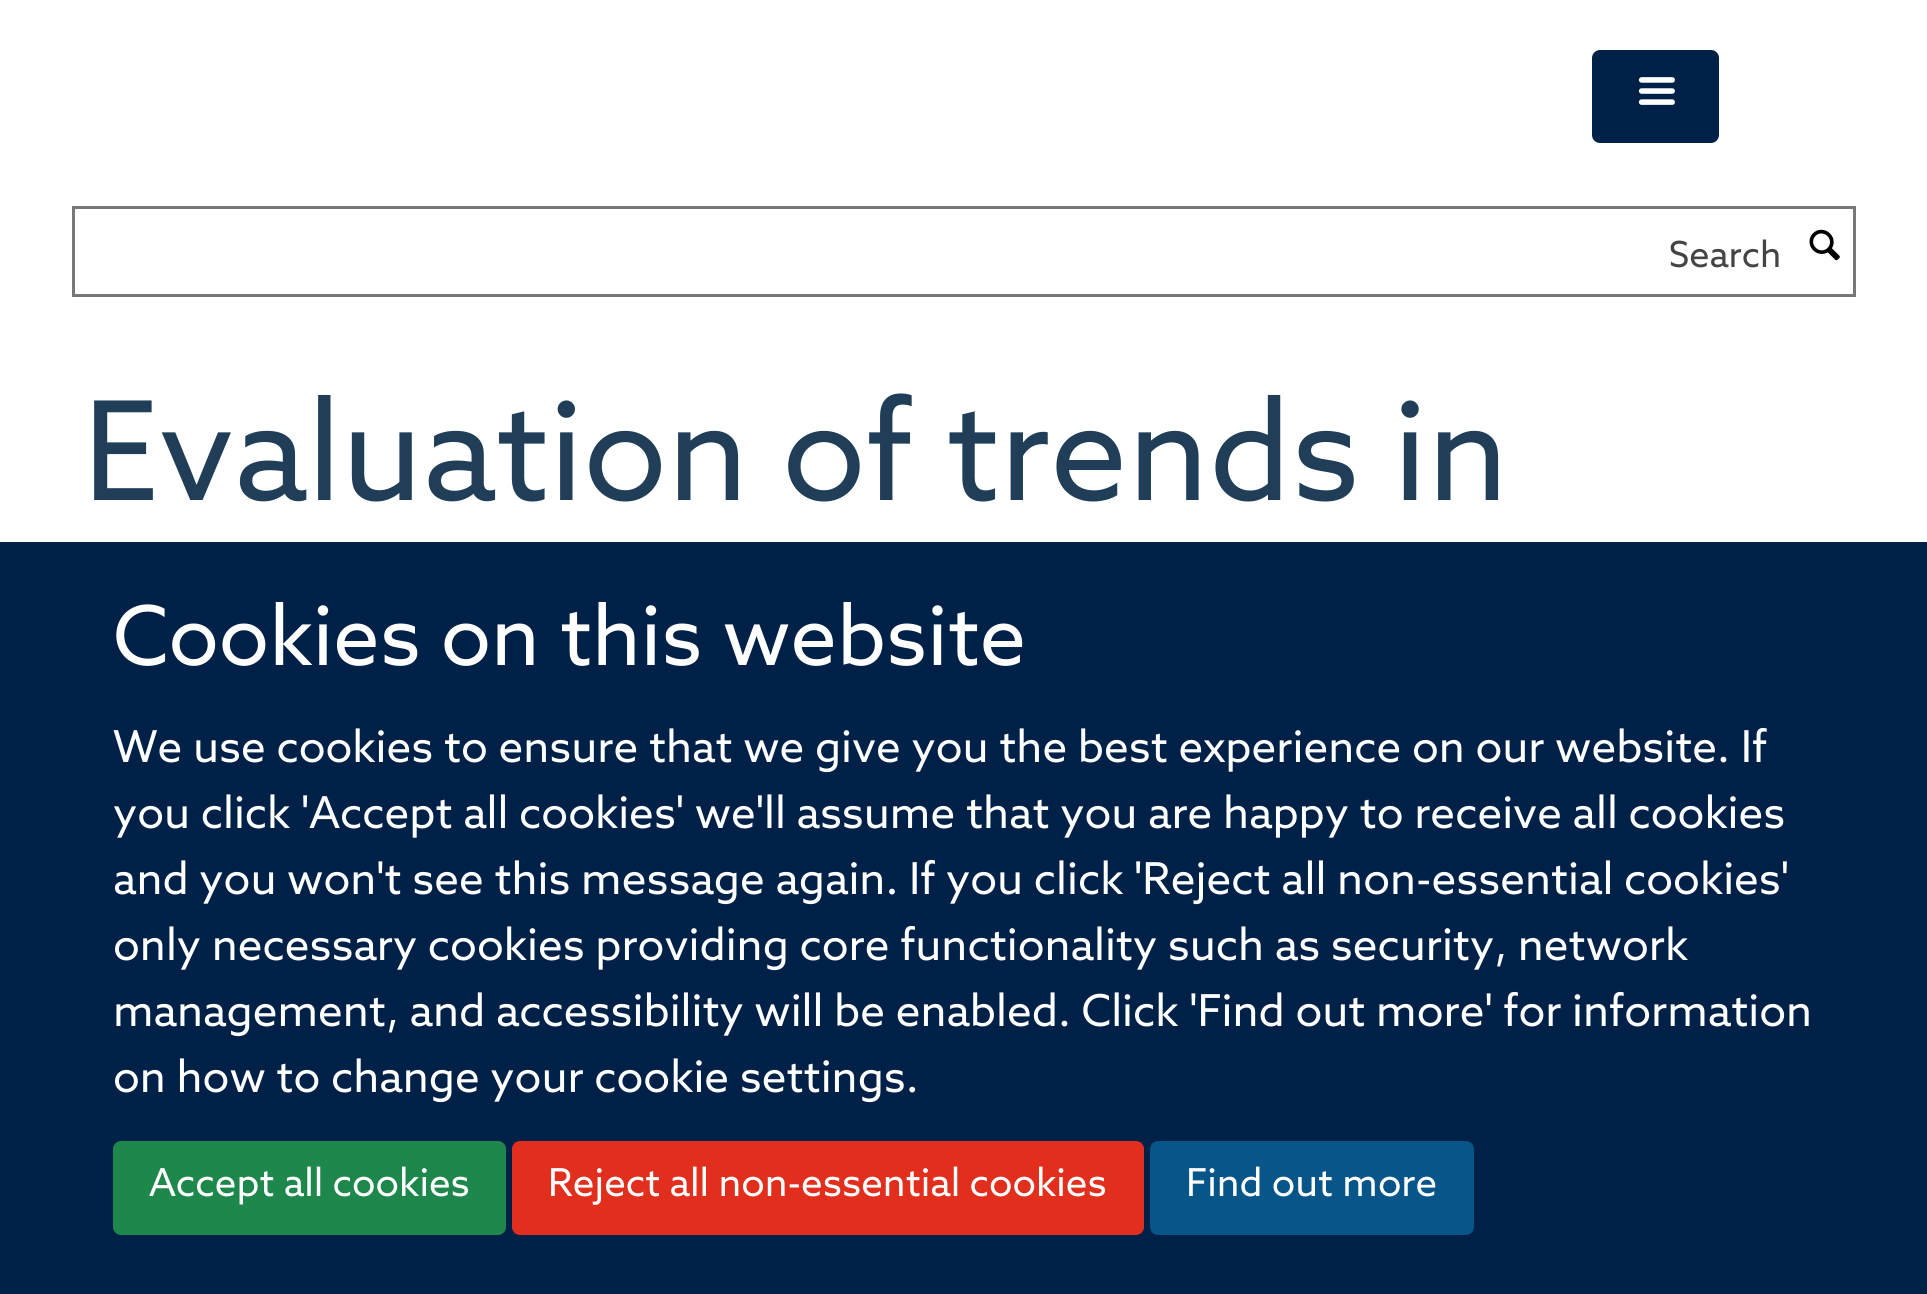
#include <cairo.h>
#include <math.h>
#include <stddef.h>


static void rgb(cairo_t *cr, int r, int g, int b)
{
	cairo_set_source_rgb(cr, r / 255.0, g / 255.0, b / 255.0);
}

static void face(cairo_t *cr, const char *family, double size, int italic, int bold)
{
	cairo_select_font_face(cr, family, italic ? CAIRO_FONT_SLANT_ITALIC : CAIRO_FONT_SLANT_NORMAL,
		bold ? CAIRO_FONT_WEIGHT_BOLD : CAIRO_FONT_WEIGHT_NORMAL);
	cairo_set_font_size(cr, size);
}

static void label(cairo_t *cr, double x, double y, const char *s)
{
	cairo_move_to(cr, x, y);
	cairo_show_text(cr, s);
}

static void rect(cairo_t *cr, double x, double y, double w, double h)
{
	cairo_rectangle(cr, x, y, w, h);
	cairo_fill(cr);
}

static void rrect(cairo_t *cr, double x, double y, double w, double h, double r)
{
	cairo_new_sub_path(cr);
	cairo_arc(cr, x + w - r, y + h - r, r, 0, M_PI / 2);
	cairo_arc(cr, x + r, y + h - r, r, M_PI / 2, M_PI);
	cairo_arc(cr, x + r, y + r, r, M_PI, 1.5 * M_PI);
	cairo_arc(cr, x + w - r, y + r, r, 1.5 * M_PI, 2 * M_PI);
	cairo_close_path(cr);
}

static void image(cairo_t *cr, const char *path, double x, double y, double w, double h)
{
	cairo_surface_t *image = cairo_image_surface_create_from_png(path);
	cairo_save(cr);
	cairo_set_source_surface(cr, image, x, y);
	cairo_rectangle(cr, x, y, w, h);
	cairo_fill(cr);
	cairo_restore(cr);
	cairo_surface_destroy(image);
}

static void draw(cairo_t *cr) {
	rgb(cr, 255, 255, 255);
	cairo_paint(cr);
	rgb(cr, 0, 33, 71);
	rrect(cr, 1593.5, 51.5, 124, 90, 6.5);
	cairo_fill_preserve(cr);
	cairo_set_line_width(cr, 3);
	cairo_stroke(cr);
	image(cr, "image0.png", 1638, 77, 37, 28);
	cairo_rectangle(cr, 73.5, 207.5, 1781, 88);
	rgb(cr, 119, 119, 119);
	cairo_stroke(cr);
	face(cr, "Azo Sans", 36, 0, 0);
	rgb(cr, 68, 68, 68);
	label(cr, 1669, 267, "Search");
	image(cr, "image1.png", 1809, 229, 31, 32);
	face(cr, "Azo Sans", 137.5, 0, 0);
	rgb(cr, 32, 62, 88);
	label(cr, 83, 500, "Evaluation of trends in");
	rgb(cr, 0, 33, 71);
	rect(cr, 0, 542, 1927, 752);
	face(cr, "Azo Sans", 82.5, 0, 0);
	rgb(cr, 255, 255, 255);
	label(cr, 113, 665, "Cookies on this website");
	face(cr, "Azo Sans", 44, 0, 0);
	label(cr, 113, 762, "We use cookies to ensure that we give you the best experience on our website. If");
	label(cr, 113, 828, "you click 'Accept all cookies' we'll assume that you are happy to receive all cookies");
	label(cr, 113, 894, "and you won't see this message again. If you click 'Reject all non-essential cookies'");
	label(cr, 113, 960, "only necessary cookies providing core functionality such as security, network");
	label(cr, 113, 1026, "management, and accessibility will be enabled. Click 'Find out more' for information");
	label(cr, 113, 1092, "on how to change your cookie settings.");
	rgb(cr, 30, 135, 75);
	rrect(cr, 114.5, 1142.5, 390, 91, 6.5);
	cairo_fill_preserve(cr);
	cairo_stroke(cr);
	face(cr, "Azo Sans", 38.5, 0, 0);
	rgb(cr, 255, 255, 255);
	label(cr, 149, 1196, "Accept all cookies");
	rgb(cr, 226, 46, 28);
	rrect(cr, 513.5, 1142.5, 629, 91, 6.5);
	cairo_fill_preserve(cr);
	cairo_stroke(cr);
	rgb(cr, 255, 255, 255);
	label(cr, 548, 1196, "Reject all non-essential cookies");
	rgb(cr, 8, 85, 137);
	rrect(cr, 1151.5, 1142.5, 321, 91, 6.5);
	cairo_fill_preserve(cr);
	cairo_stroke(cr);
	rgb(cr, 255, 255, 255);
	label(cr, 1186, 1196, "Find out more");
}

int main(void) {
	cairo_surface_t *surface = cairo_image_surface_create(CAIRO_FORMAT_RGB24, 1927, 1294);
	cairo_t *cr = cairo_create(surface);
	cairo_font_options_t *options = cairo_font_options_create();
	cairo_font_options_set_hint_metrics(options, CAIRO_HINT_METRICS_OFF);
	cairo_font_options_set_hint_style(options, CAIRO_HINT_STYLE_NONE);
	cairo_set_font_options(cr, options);
	cairo_set_miter_limit(cr, 4);
	draw(cr);
	cairo_surface_write_to_png(surface, "render.png");
	cairo_font_options_destroy(options);
	cairo_destroy(cr);
	cairo_surface_destroy(surface);
	return 0;
}
